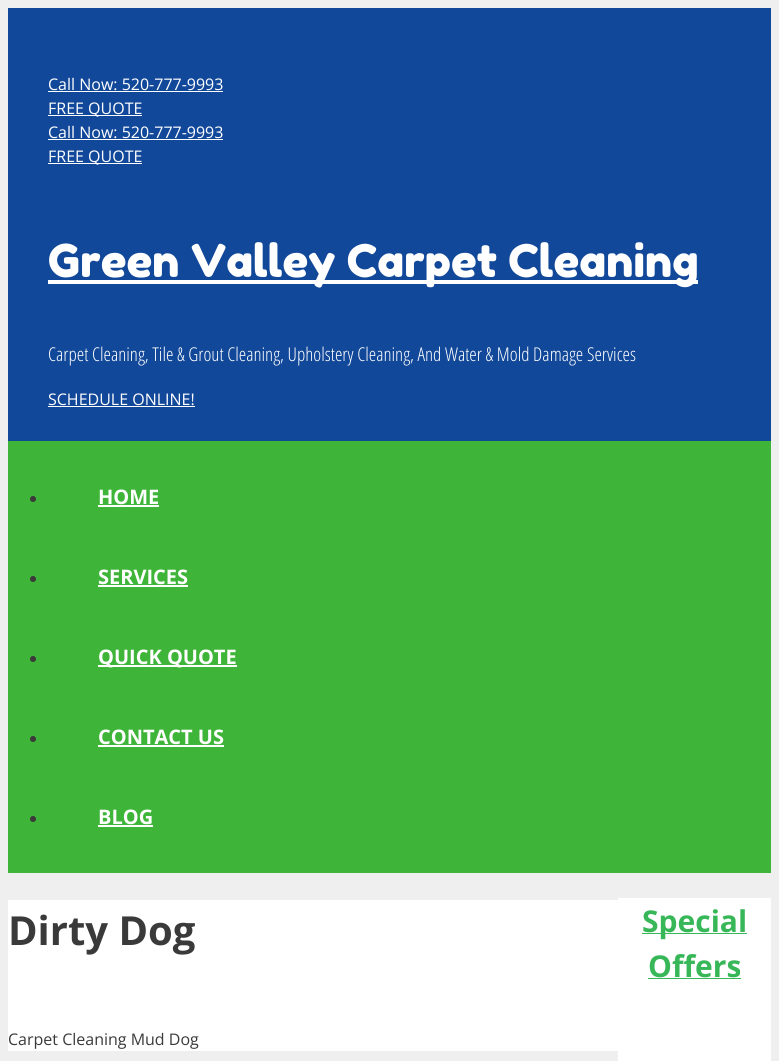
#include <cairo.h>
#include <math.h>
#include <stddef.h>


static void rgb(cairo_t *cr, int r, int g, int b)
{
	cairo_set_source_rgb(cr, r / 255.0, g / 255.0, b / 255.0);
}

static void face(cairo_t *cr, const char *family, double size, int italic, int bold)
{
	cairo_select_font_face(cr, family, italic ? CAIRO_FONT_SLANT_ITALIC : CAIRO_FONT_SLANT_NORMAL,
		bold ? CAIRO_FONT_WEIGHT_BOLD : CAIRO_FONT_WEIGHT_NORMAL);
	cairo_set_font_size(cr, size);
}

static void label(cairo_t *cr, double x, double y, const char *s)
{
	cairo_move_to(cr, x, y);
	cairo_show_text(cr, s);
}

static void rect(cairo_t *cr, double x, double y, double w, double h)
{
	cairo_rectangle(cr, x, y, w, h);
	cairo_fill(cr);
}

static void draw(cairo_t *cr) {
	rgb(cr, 239, 239, 239);
	cairo_paint(cr);
	rgb(cr, 18, 72, 153);
	rect(cr, 8, 8, 763, 433);
	face(cr, "Open Sans", 16, 0, 0);
	rgb(cr, 255, 255, 255);
	label(cr, 48, 90, "Call Now: 520-777-9993");
	rect(cr, 48, 91, 175, 1);
	rect(cr, 48, 115, 94, 1);
	label(cr, 48, 114, "FREE QUOTE");
	label(cr, 48, 138, "Call Now: 520-777-9993");
	rect(cr, 48, 139, 175, 1);
	rect(cr, 48, 163, 94, 1);
	label(cr, 48, 162, "FREE QUOTE");
	rect(cr, 48, 280, 650, 4);
	face(cr, "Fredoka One", 45, 0, 0);
	label(cr, 48, 277, "Green Valley Carpet Cleaning");
	face(cr, "Open Sans Condensed Light", 19, 0, 0);
	label(cr, 48, 361, "Carpet Cleaning, Tile & Grout Cleaning, Upholstery Cleaning, And Water & Mold Damage Services");
	face(cr, "Open Sans", 16, 0, 0);
	label(cr, 48, 405, "SCHEDULE ONLINE!");
	rect(cr, 48, 406, 147, 1);
	rgb(cr, 62, 181, 56);
	rect(cr, 8, 441, 763, 432);
	rgb(cr, 58, 58, 58);
	cairo_new_path(cr);
	cairo_arc(cr, 33, 499, 3, 0, 2 * M_PI);
	cairo_fill(cr);
	face(cr, "Open Sans", 20, 0, 1);
	rgb(cr, 255, 255, 255);
	label(cr, 98, 504, "HOME");
	rect(cr, 98, 505, 61, 2);
	rgb(cr, 58, 58, 58);
	cairo_new_path(cr);
	cairo_arc(cr, 33, 579, 3, 0, 2 * M_PI);
	cairo_fill(cr);
	rgb(cr, 255, 255, 255);
	label(cr, 98, 584, "SERVICES");
	rect(cr, 98, 585, 90, 2);
	rgb(cr, 58, 58, 58);
	cairo_new_path(cr);
	cairo_arc(cr, 33, 659, 3, 0, 2 * M_PI);
	cairo_fill(cr);
	rgb(cr, 255, 255, 255);
	rect(cr, 98, 665, 139, 2);
	label(cr, 98, 664, "QUICK QUOTE");
	rgb(cr, 58, 58, 58);
	cairo_new_path(cr);
	cairo_arc(cr, 33, 739, 3, 0, 2 * M_PI);
	cairo_fill(cr);
	rgb(cr, 255, 255, 255);
	label(cr, 98, 744, "CONTACT US");
	rect(cr, 98, 745, 126, 2);
	rgb(cr, 58, 58, 58);
	cairo_new_path(cr);
	cairo_arc(cr, 33, 819, 3, 0, 2 * M_PI);
	cairo_fill(cr);
	rgb(cr, 255, 255, 255);
	label(cr, 98, 824, "BLOG");
	rect(cr, 98, 825, 55, 2);
	rect(cr, 8, 900, 610, 151);
	face(cr, "Open Sans", 40, 0, 1);
	rgb(cr, 58, 58, 58);
	label(cr, 8, 945, "Dirty Dog");
	face(cr, "Open Sans", 16, 0, 0);
	label(cr, 8, 1045, "Carpet Cleaning Mud Dog");
	rgb(cr, 255, 255, 255);
	rect(cr, 618, 898, 153, 163);
	rgb(cr, 56, 183, 88);
	rect(cr, 642, 933, 105, 1);
	face(cr, "Open Sans", 30, 0, 1);
	label(cr, 642, 932, "Special");
	label(cr, 648, 977, "Offers");
	rect(cr, 648, 978, 93, 1);
}

int main(void) {
	cairo_surface_t *surface = cairo_image_surface_create(CAIRO_FORMAT_RGB24, 779, 1061);
	cairo_t *cr = cairo_create(surface);
	cairo_font_options_t *options = cairo_font_options_create();
	cairo_font_options_set_hint_metrics(options, CAIRO_HINT_METRICS_OFF);
	cairo_font_options_set_hint_style(options, CAIRO_HINT_STYLE_NONE);
	cairo_set_font_options(cr, options);
	cairo_set_miter_limit(cr, 4);
	draw(cr);
	cairo_surface_write_to_png(surface, "render.png");
	cairo_font_options_destroy(options);
	cairo_destroy(cr);
	cairo_surface_destroy(surface);
	return 0;
}
